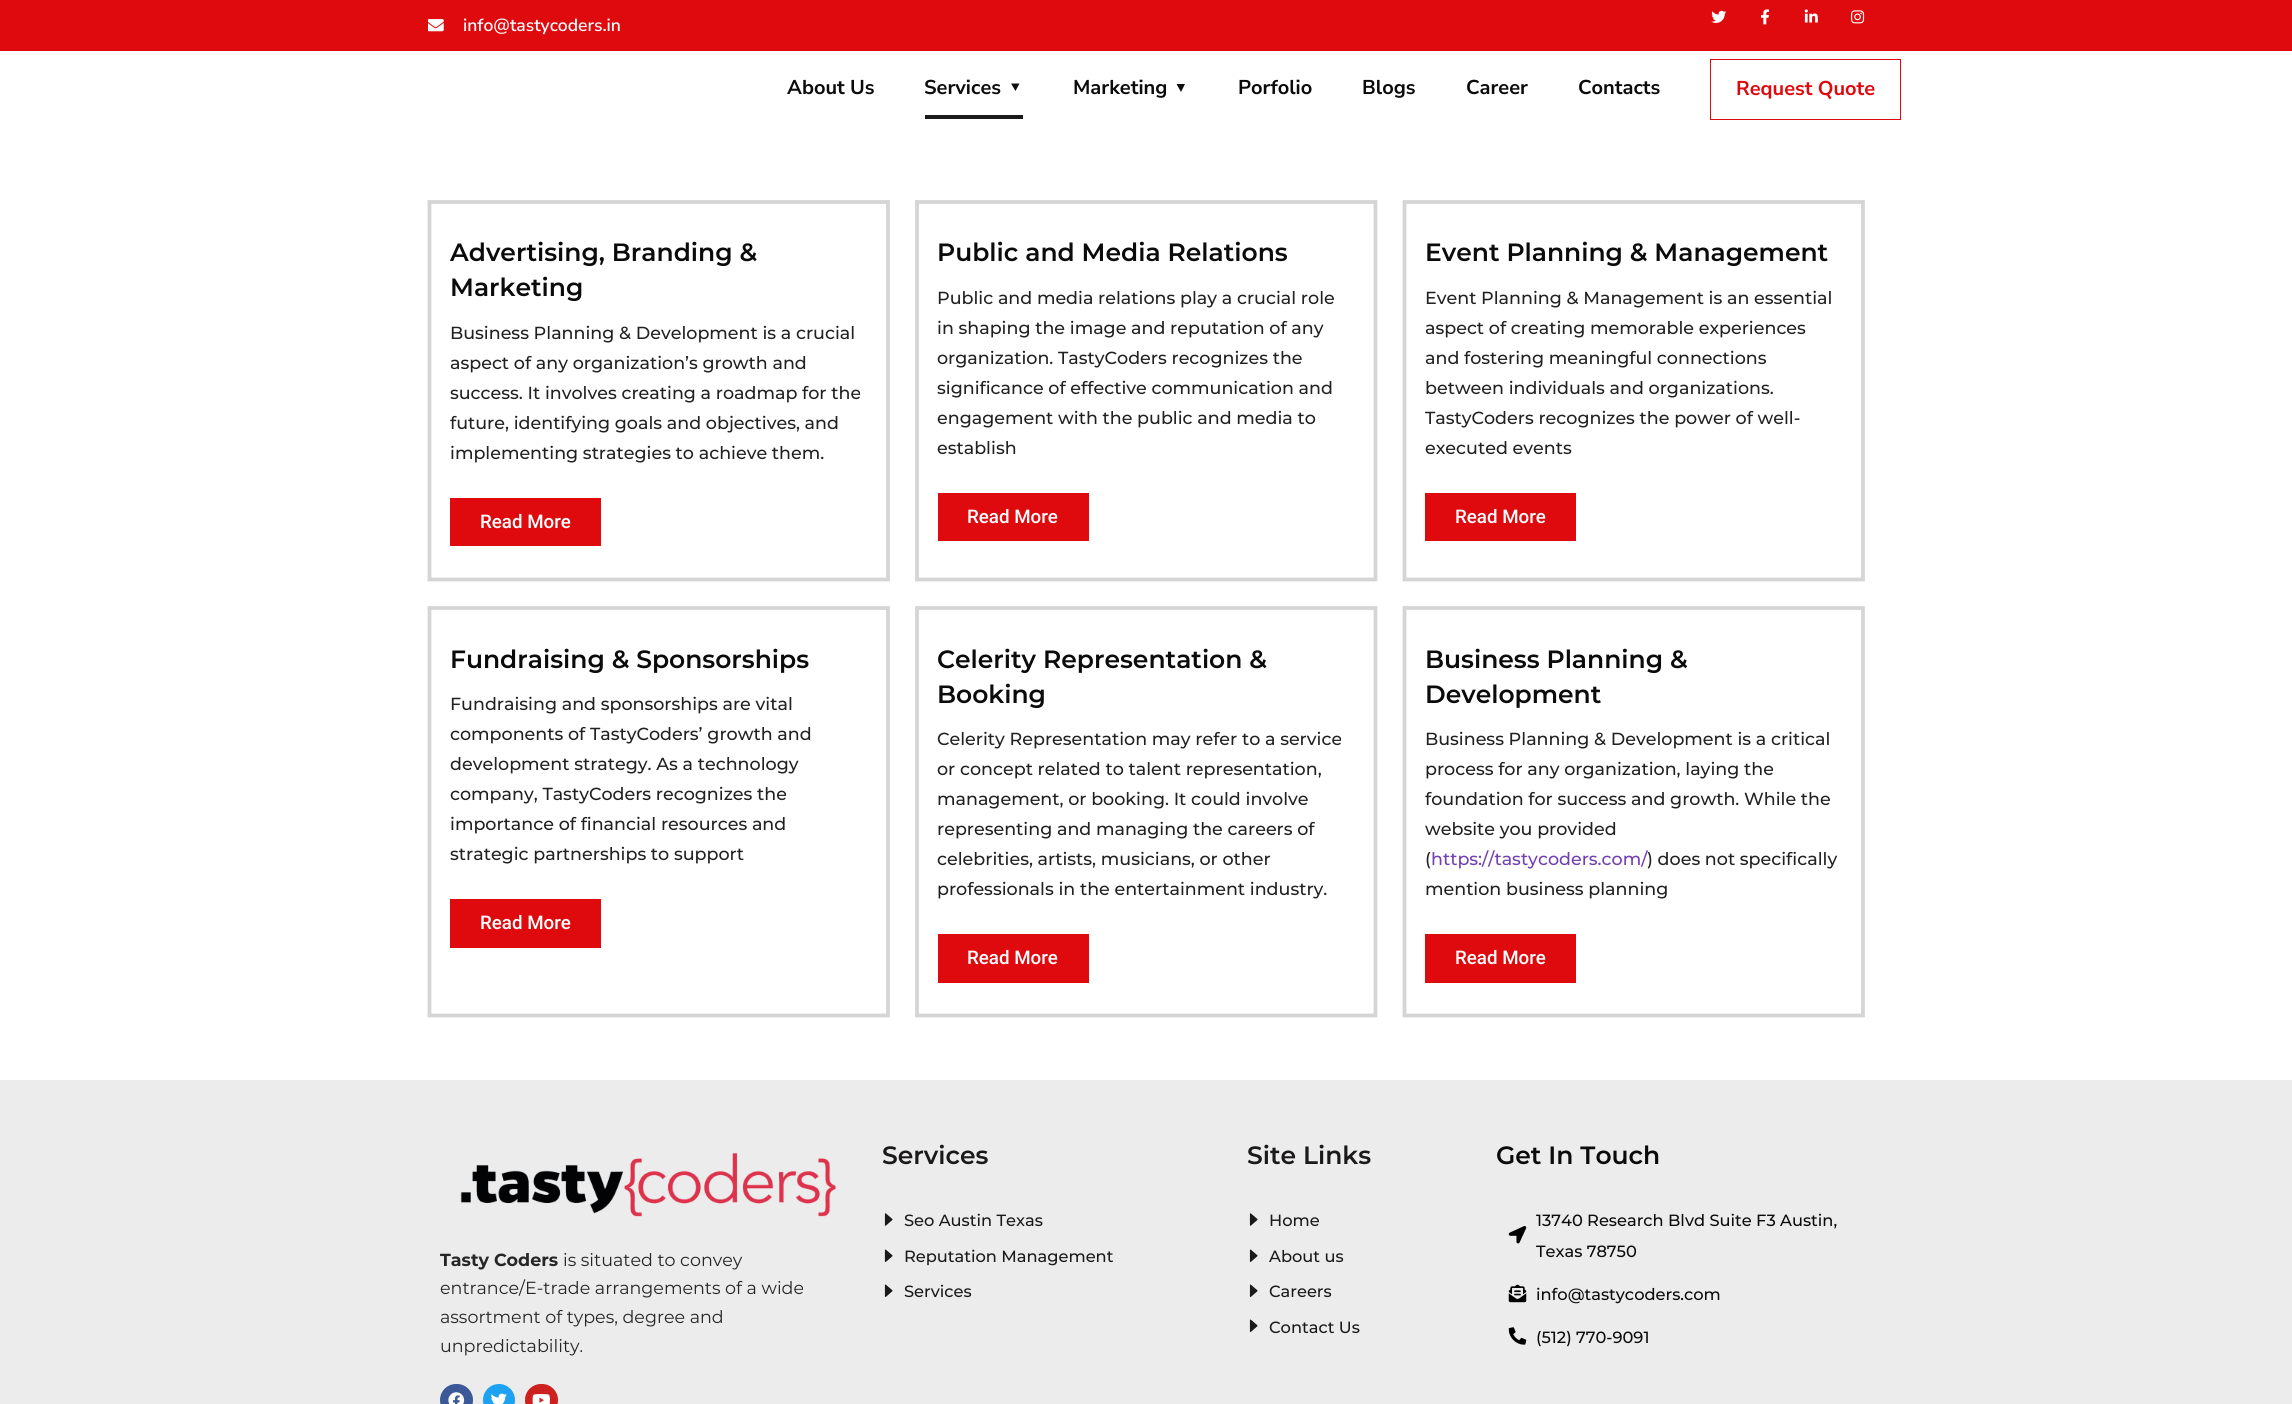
#include <cairo.h>
#include <math.h>
#include <stddef.h>


static void rgb(cairo_t *cr, int r, int g, int b)
{
	cairo_set_source_rgb(cr, r / 255.0, g / 255.0, b / 255.0);
}

static void face(cairo_t *cr, const char *family, double size, int italic, int bold)
{
	cairo_select_font_face(cr, family, italic ? CAIRO_FONT_SLANT_ITALIC : CAIRO_FONT_SLANT_NORMAL,
		bold ? CAIRO_FONT_WEIGHT_BOLD : CAIRO_FONT_WEIGHT_NORMAL);
	cairo_set_font_size(cr, size);
}

static void label(cairo_t *cr, double x, double y, const char *s)
{
	cairo_move_to(cr, x, y);
	cairo_show_text(cr, s);
}

static void rect(cairo_t *cr, double x, double y, double w, double h)
{
	cairo_rectangle(cr, x, y, w, h);
	cairo_fill(cr);
}

static void rrect(cairo_t *cr, double x, double y, double w, double h, double r)
{
	cairo_new_sub_path(cr);
	cairo_arc(cr, x + w - r, y + h - r, r, 0, M_PI / 2);
	cairo_arc(cr, x + r, y + h - r, r, M_PI / 2, M_PI);
	cairo_arc(cr, x + r, y + r, r, M_PI, 1.5 * M_PI);
	cairo_arc(cr, x + w - r, y + r, r, 1.5 * M_PI, 2 * M_PI);
	cairo_close_path(cr);
}

static void image(cairo_t *cr, const char *path, double x, double y, double w, double h)
{
	cairo_surface_t *image = cairo_image_surface_create_from_png(path);
	cairo_save(cr);
	cairo_set_source_surface(cr, image, x, y);
	cairo_rectangle(cr, x, y, w, h);
	cairo_fill(cr);
	cairo_restore(cr);
	cairo_surface_destroy(image);
}

static void draw(cairo_t *cr) {
	rgb(cr, 255, 255, 255);
	cairo_paint(cr);
	rgb(cr, 223, 10, 14);
	rect(cr, 0, 0, 2292, 51);
	image(cr, "image0.png", 428, 19, 16, 13);
	face(cr, "Nunito Sans SemiBold", 17.5, 0, 0);
	rgb(cr, 255, 255, 255);
	label(cr, 463, 31, "info@tastycoders.in");
	image(cr, "image1.png", 1711, 10, 16, 13);
	image(cr, "image2.png", 1761, 9, 8, 16);
	image(cr, "image3.png", 1804, 9, 14, 14);
	image(cr, "image4.png", 1850, 10, 15, 14);
	face(cr, "Nunito Sans", 20, 0, 1);
	rgb(cr, 11, 11, 12);
	label(cr, 787, 94, "About Us");
	label(cr, 924, 94, "Services");
	rgb(cr, 14, 14, 14);
	cairo_new_path(cr);
	cairo_move_to(cr, 1015.5, 91);
	cairo_line_to(cr, 1011, 83.5);
	cairo_line_to(cr, 1019.5, 83.5);
	cairo_close_path(cr);
	cairo_fill(cr);
	rgb(cr, 26, 26, 26);
	rect(cr, 925, 115, 98, 4);
	rgb(cr, 11, 11, 12);
	label(cr, 1073, 94, "Marketing");
	rgb(cr, 14, 14, 14);
	cairo_new_path(cr);
	cairo_move_to(cr, 1181, 92);
	cairo_line_to(cr, 1176.5, 84);
	cairo_line_to(cr, 1185, 84);
	cairo_close_path(cr);
	cairo_fill(cr);
	rgb(cr, 11, 11, 12);
	label(cr, 1238, 94, "Porfolio");
	label(cr, 1362, 94, "Blogs");
	label(cr, 1466, 94, "Career");
	label(cr, 1578, 94, "Contacts");
	cairo_rectangle(cr, 1710.5, 59.5, 190, 60);
	rgb(cr, 223, 10, 14);
	cairo_set_line_width(cr, 1);
	cairo_stroke(cr);
	label(cr, 1736, 95, "Request Quote");
	cairo_new_path(cr);
	cairo_move_to(cr, 429.5, 202);
	cairo_line_to(cr, 888, 202);
	cairo_line_to(cr, 888, 579.5);
	cairo_line_to(cr, 429.5, 579.5);
	cairo_close_path(cr);
	rgb(cr, 213, 213, 213);
	cairo_set_line_width(cr, 3.8);
	cairo_stroke(cr);
	face(cr, "Montserrat SemiBold", 25, 0, 0);
	rgb(cr, 11, 11, 12);
	label(cr, 450, 261, "Advertising, Branding &");
	label(cr, 450, 296, "Marketing");
	face(cr, "Montserrat Medium", 17.5, 0, 0);
	rgb(cr, 34, 33, 33);
	label(cr, 450, 339, "Business Planning & Development is a crucial");
	label(cr, 450, 369, "aspect of any organization’s growth and");
	label(cr, 450, 399, "success. It involves creating a roadmap for the");
	label(cr, 450, 429, "future, identifying goals and objectives, and");
	label(cr, 450, 459, "implementing strategies to achieve them.");
	rgb(cr, 223, 10, 14);
	rect(cr, 450, 498, 151, 48);
	face(cr, "Roboto Medium", 18.75, 0, 0);
	rgb(cr, 255, 255, 255);
	label(cr, 480, 528, "Read More");
	cairo_new_path(cr);
	cairo_move_to(cr, 917, 202);
	cairo_line_to(cr, 1375.5, 202);
	cairo_line_to(cr, 1375.5, 579.5);
	cairo_line_to(cr, 917, 579.5);
	cairo_close_path(cr);
	rgb(cr, 213, 213, 213);
	cairo_stroke(cr);
	face(cr, "Montserrat SemiBold", 25, 0, 0);
	rgb(cr, 11, 11, 12);
	label(cr, 937, 261, "Public and Media Relations");
	face(cr, "Montserrat Medium", 17.5, 0, 0);
	rgb(cr, 34, 33, 33);
	label(cr, 937, 304, "Public and media relations play a crucial role");
	label(cr, 937, 334, "in shaping the image and reputation of any");
	label(cr, 937, 364, "organization. TastyCoders recognizes the");
	label(cr, 937, 394, "significance of effective communication and");
	label(cr, 937, 424, "engagement with the public and media to");
	label(cr, 937, 454, "establish");
	rgb(cr, 223, 10, 14);
	rect(cr, 938, 493, 151, 48);
	face(cr, "Roboto Medium", 18.75, 0, 0);
	rgb(cr, 255, 255, 255);
	label(cr, 967, 523, "Read More");
	cairo_new_path(cr);
	cairo_move_to(cr, 1404.5, 202);
	cairo_line_to(cr, 1863, 202);
	cairo_line_to(cr, 1863, 579.5);
	cairo_line_to(cr, 1404.5, 579.5);
	cairo_close_path(cr);
	rgb(cr, 213, 213, 213);
	cairo_stroke(cr);
	face(cr, "Montserrat SemiBold", 25, 0, 0);
	rgb(cr, 11, 11, 12);
	label(cr, 1425, 261, "Event Planning & Management");
	face(cr, "Montserrat Medium", 17.5, 0, 0);
	rgb(cr, 34, 33, 33);
	label(cr, 1425, 304, "Event Planning & Management is an essential");
	label(cr, 1425, 334, "aspect of creating memorable experiences");
	label(cr, 1425, 364, "and fostering meaningful connections");
	label(cr, 1425, 394, "between individuals and organizations.");
	label(cr, 1425, 424, "TastyCoders recognizes the power of well-");
	label(cr, 1425, 454, "executed events");
	rgb(cr, 223, 10, 14);
	rect(cr, 1425, 493, 151, 48);
	face(cr, "Roboto Medium", 18.75, 0, 0);
	rgb(cr, 255, 255, 255);
	label(cr, 1455, 523, "Read More");
	cairo_new_path(cr);
	cairo_move_to(cr, 429.5, 608);
	cairo_line_to(cr, 888, 608);
	cairo_line_to(cr, 888, 1015.5);
	cairo_line_to(cr, 429.5, 1015.5);
	cairo_close_path(cr);
	rgb(cr, 213, 213, 213);
	cairo_stroke(cr);
	face(cr, "Montserrat SemiBold", 25, 0, 0);
	rgb(cr, 11, 11, 12);
	label(cr, 450, 668, "Fundraising & Sponsorships");
	face(cr, "Montserrat Medium", 17.5, 0, 0);
	rgb(cr, 34, 33, 33);
	label(cr, 450, 710, "Fundraising and sponsorships are vital");
	label(cr, 450, 740, "components of TastyCoders’ growth and");
	label(cr, 450, 770, "development strategy. As a technology");
	label(cr, 450, 800, "company, TastyCoders recognizes the");
	label(cr, 450, 830, "importance of financial resources and");
	label(cr, 450, 860, "strategic partnerships to support");
	rgb(cr, 223, 10, 14);
	rect(cr, 450, 899, 151, 49);
	face(cr, "Roboto Medium", 18.75, 0, 0);
	rgb(cr, 255, 255, 255);
	label(cr, 480, 929, "Read More");
	cairo_new_path(cr);
	cairo_move_to(cr, 917, 608);
	cairo_line_to(cr, 1375.5, 608);
	cairo_line_to(cr, 1375.5, 1015.5);
	cairo_line_to(cr, 917, 1015.5);
	cairo_close_path(cr);
	rgb(cr, 213, 213, 213);
	cairo_stroke(cr);
	face(cr, "Montserrat SemiBold", 25, 0, 0);
	rgb(cr, 11, 11, 12);
	label(cr, 937, 668, "Celerity Representation &");
	label(cr, 937, 703, "Booking");
	face(cr, "Montserrat Medium", 17.5, 0, 0);
	rgb(cr, 34, 33, 33);
	label(cr, 937, 745, "Celerity Representation may refer to a service");
	label(cr, 937, 775, "or concept related to talent representation,");
	label(cr, 937, 805, "management, or booking. It could involve");
	label(cr, 937, 835, "representing and managing the careers of");
	label(cr, 937, 865, "celebrities, artists, musicians, or other");
	label(cr, 937, 895, "professionals in the entertainment industry.");
	rgb(cr, 223, 10, 14);
	rect(cr, 938, 934, 151, 49);
	face(cr, "Roboto Medium", 18.75, 0, 0);
	rgb(cr, 255, 255, 255);
	label(cr, 967, 964, "Read More");
	cairo_new_path(cr);
	cairo_move_to(cr, 1404.5, 608);
	cairo_line_to(cr, 1863, 608);
	cairo_line_to(cr, 1863, 1015.5);
	cairo_line_to(cr, 1404.5, 1015.5);
	cairo_close_path(cr);
	rgb(cr, 213, 213, 213);
	cairo_stroke(cr);
	face(cr, "Montserrat SemiBold", 25, 0, 0);
	rgb(cr, 11, 11, 12);
	label(cr, 1425, 668, "Business Planning &");
	label(cr, 1425, 703, "Development");
	face(cr, "Montserrat Medium", 17.5, 0, 0);
	rgb(cr, 34, 33, 33);
	label(cr, 1425, 745, "Business Planning & Development is a critical");
	label(cr, 1425, 775, "process for any organization, laying the");
	label(cr, 1425, 805, "foundation for success and growth. While the");
	label(cr, 1425, 835, "website you provided");
	label(cr, 1425, 865, "(");
	rgb(cr, 113, 65, 177);
	label(cr, 1431, 865, "https://tastycoders.com/");
	rgb(cr, 34, 33, 33);
	label(cr, 1647, 865, ") does not specifically");
	label(cr, 1425, 895, "mention business planning");
	rgb(cr, 223, 10, 14);
	rect(cr, 1425, 934, 151, 49);
	face(cr, "Roboto Medium", 18.75, 0, 0);
	rgb(cr, 255, 255, 255);
	label(cr, 1455, 964, "Read More");
	rgb(cr, 236, 236, 236);
	rect(cr, 0, 1080, 2292, 324);
	image(cr, "image5.png", 460, 1153, 376, 64);
	face(cr, "Montserrat", 17.5, 0, 1);
	rgb(cr, 38, 38, 39);
	label(cr, 440, 1266, "Tasty Coders");
	face(cr, "Montserrat", 17.5, 0, 0);
	label(cr, 563, 1266, "is situated to convey");
	label(cr, 440, 1294, "entrance/E-trade arrangements of a wide");
	label(cr, 440, 1323, "assortment of types, degree and");
	label(cr, 440, 1352, "unpredictability.");
	rgb(cr, 59, 89, 152);
	rrect(cr, 440, 1384, 33, 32, 16);
	cairo_fill(cr);
	image(cr, "image6.png", 448, 1392, 17, 12);
	rgb(cr, 29, 161, 242);
	cairo_arc(cr, 499, 1400, 16, 0, 2 * M_PI);
	cairo_fill(cr);
	image(cr, "image7.png", 491, 1393, 16, 11);
	rgb(cr, 205, 32, 31);
	rrect(cr, 525, 1384, 33, 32, 16);
	cairo_fill(cr);
	image(cr, "image8.png", 532, 1394, 18, 10);
	face(cr, "Montserrat SemiBold", 25, 0, 0);
	rgb(cr, 27, 25, 25);
	label(cr, 882, 1164, "Services");
	image(cr, "image9.png", 884, 1213, 9, 13);
	face(cr, "Montserrat Medium", 16.25, 0, 0);
	label(cr, 904, 1226, "Seo Austin Texas");
	image(cr, "image10.png", 884, 1249, 9, 13);
	label(cr, 904, 1262, "Reputation Management");
	image(cr, "image10.png", 884, 1284, 9, 13);
	label(cr, 904, 1297, "Services");
	face(cr, "Montserrat SemiBold", 25, 0, 0);
	label(cr, 1247, 1164, "Site Links");
	image(cr, "image9.png", 1249, 1213, 9, 13);
	face(cr, "Montserrat Medium", 16.25, 0, 0);
	label(cr, 1269, 1226, "Home");
	image(cr, "image10.png", 1249, 1249, 9, 13);
	label(cr, 1269, 1262, "About us");
	image(cr, "image10.png", 1249, 1284, 9, 13);
	label(cr, 1269, 1297, "Careers");
	image(cr, "image10.png", 1249, 1319, 9, 13);
	label(cr, 1269, 1333, "Contact Us");
	face(cr, "Montserrat SemiBold", 25, 0, 0);
	rgb(cr, 11, 11, 12);
	label(cr, 1496, 1164, "Get In Touch");
	image(cr, "image11.png", 1508, 1226, 19, 18);
	face(cr, "Montserrat Medium", 16.25, 0, 0);
	label(cr, 1536, 1226, "13740 Research Blvd Suite F3 Austin,");
	label(cr, 1536, 1257, "Texas 78750");
	image(cr, "image12.png", 1508, 1284, 19, 19);
	label(cr, 1536, 1300, "info@tastycoders.com");
	image(cr, "image13.png", 1508, 1327, 19, 18);
	label(cr, 1536, 1343, "(512) 770-9091");
}

int main(void) {
	cairo_surface_t *surface = cairo_image_surface_create(CAIRO_FORMAT_RGB24, 2292, 1404);
	cairo_t *cr = cairo_create(surface);
	cairo_font_options_t *options = cairo_font_options_create();
	cairo_font_options_set_hint_metrics(options, CAIRO_HINT_METRICS_OFF);
	cairo_font_options_set_hint_style(options, CAIRO_HINT_STYLE_NONE);
	cairo_set_font_options(cr, options);
	cairo_set_miter_limit(cr, 4);
	draw(cr);
	cairo_surface_write_to_png(surface, "render.png");
	cairo_font_options_destroy(options);
	cairo_destroy(cr);
	cairo_surface_destroy(surface);
	return 0;
}
